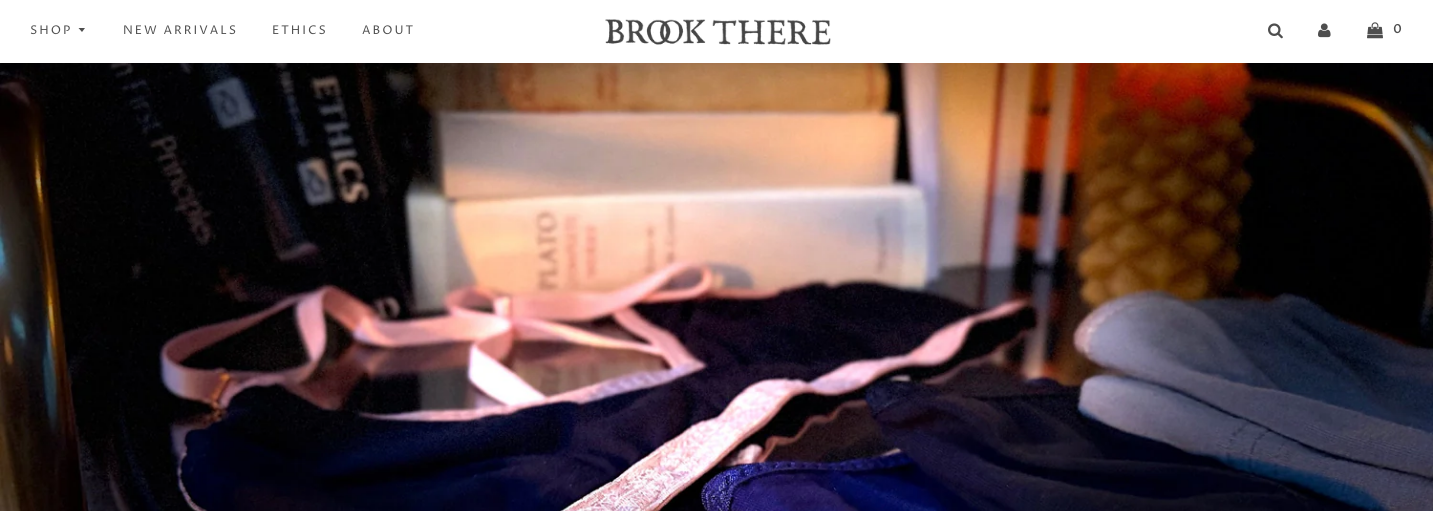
#include <cairo.h>
#include <math.h>
#include <stddef.h>


static void rgb(cairo_t *cr, int r, int g, int b)
{
	cairo_set_source_rgb(cr, r / 255.0, g / 255.0, b / 255.0);
}

static void face(cairo_t *cr, const char *family, double size, int italic, int bold)
{
	cairo_select_font_face(cr, family, italic ? CAIRO_FONT_SLANT_ITALIC : CAIRO_FONT_SLANT_NORMAL,
		bold ? CAIRO_FONT_WEIGHT_BOLD : CAIRO_FONT_WEIGHT_NORMAL);
	cairo_set_font_size(cr, size);
}

static void tracked(cairo_t *cr, double x, double y, const char *s, double letter, double word)
{
	cairo_move_to(cr, x, y);
	while (*s) {
		char ch[5] = {0};
		int n = 0;
		do ch[n++] = *s++; while ((*s & 0xC0) == 0x80);
		cairo_show_text(cr, ch);
		cairo_rel_move_to(cr, letter + word * (*ch == ' '), 0);
	}
}

static void image(cairo_t *cr, const char *path, double x, double y, double w, double h)
{
	cairo_surface_t *image = cairo_image_surface_create_from_png(path);
	cairo_save(cr);
	cairo_set_source_surface(cr, image, x, y);
	cairo_rectangle(cr, x, y, w, h);
	cairo_fill(cr);
	cairo_restore(cr);
	cairo_surface_destroy(image);
}

static void draw(cairo_t *cr) {
	rgb(cr, 255, 255, 255);
	cairo_paint(cr);
	face(cr, "Proza Libre", 12, 0, 0);
	rgb(cr, 78, 78, 78);
	tracked(cr, 30, 34, "SHOP", 2, 0);
	cairo_new_path(cr);
	cairo_move_to(cr, 78.5, 28);
	cairo_line_to(cr, 82, 32);
	cairo_line_to(cr, 85, 28);
	cairo_close_path(cr);
	cairo_fill(cr);
	tracked(cr, 123, 34, "NEW ARRIVALS", 2, 0);
	tracked(cr, 272, 34, "ETHICS", 2, 0);
	tracked(cr, 362, 34, "ABOUT", 2, 0);
	image(cr, "image0.png", 605, 19, 226, 26);
	image(cr, "image1.png", 1268, 23, 15, 16);
	image(cr, "image2.png", 1318, 23, 13, 15);
	image(cr, "image3.png", 1367, 22, 16, 17);
	face(cr, "Proza Libre", 12, 0, 1);
	tracked(cr, 1393, 33, "0", 1, 0);
	image(cr, "image4.png", 0, 63, 1433, 448);
}

int main(void) {
	cairo_surface_t *surface = cairo_image_surface_create(CAIRO_FORMAT_RGB24, 1433, 511);
	cairo_t *cr = cairo_create(surface);
	cairo_font_options_t *options = cairo_font_options_create();
	cairo_font_options_set_hint_metrics(options, CAIRO_HINT_METRICS_OFF);
	cairo_font_options_set_hint_style(options, CAIRO_HINT_STYLE_NONE);
	cairo_set_font_options(cr, options);
	cairo_set_miter_limit(cr, 4);
	draw(cr);
	cairo_surface_write_to_png(surface, "render.png");
	cairo_font_options_destroy(options);
	cairo_destroy(cr);
	cairo_surface_destroy(surface);
	return 0;
}
